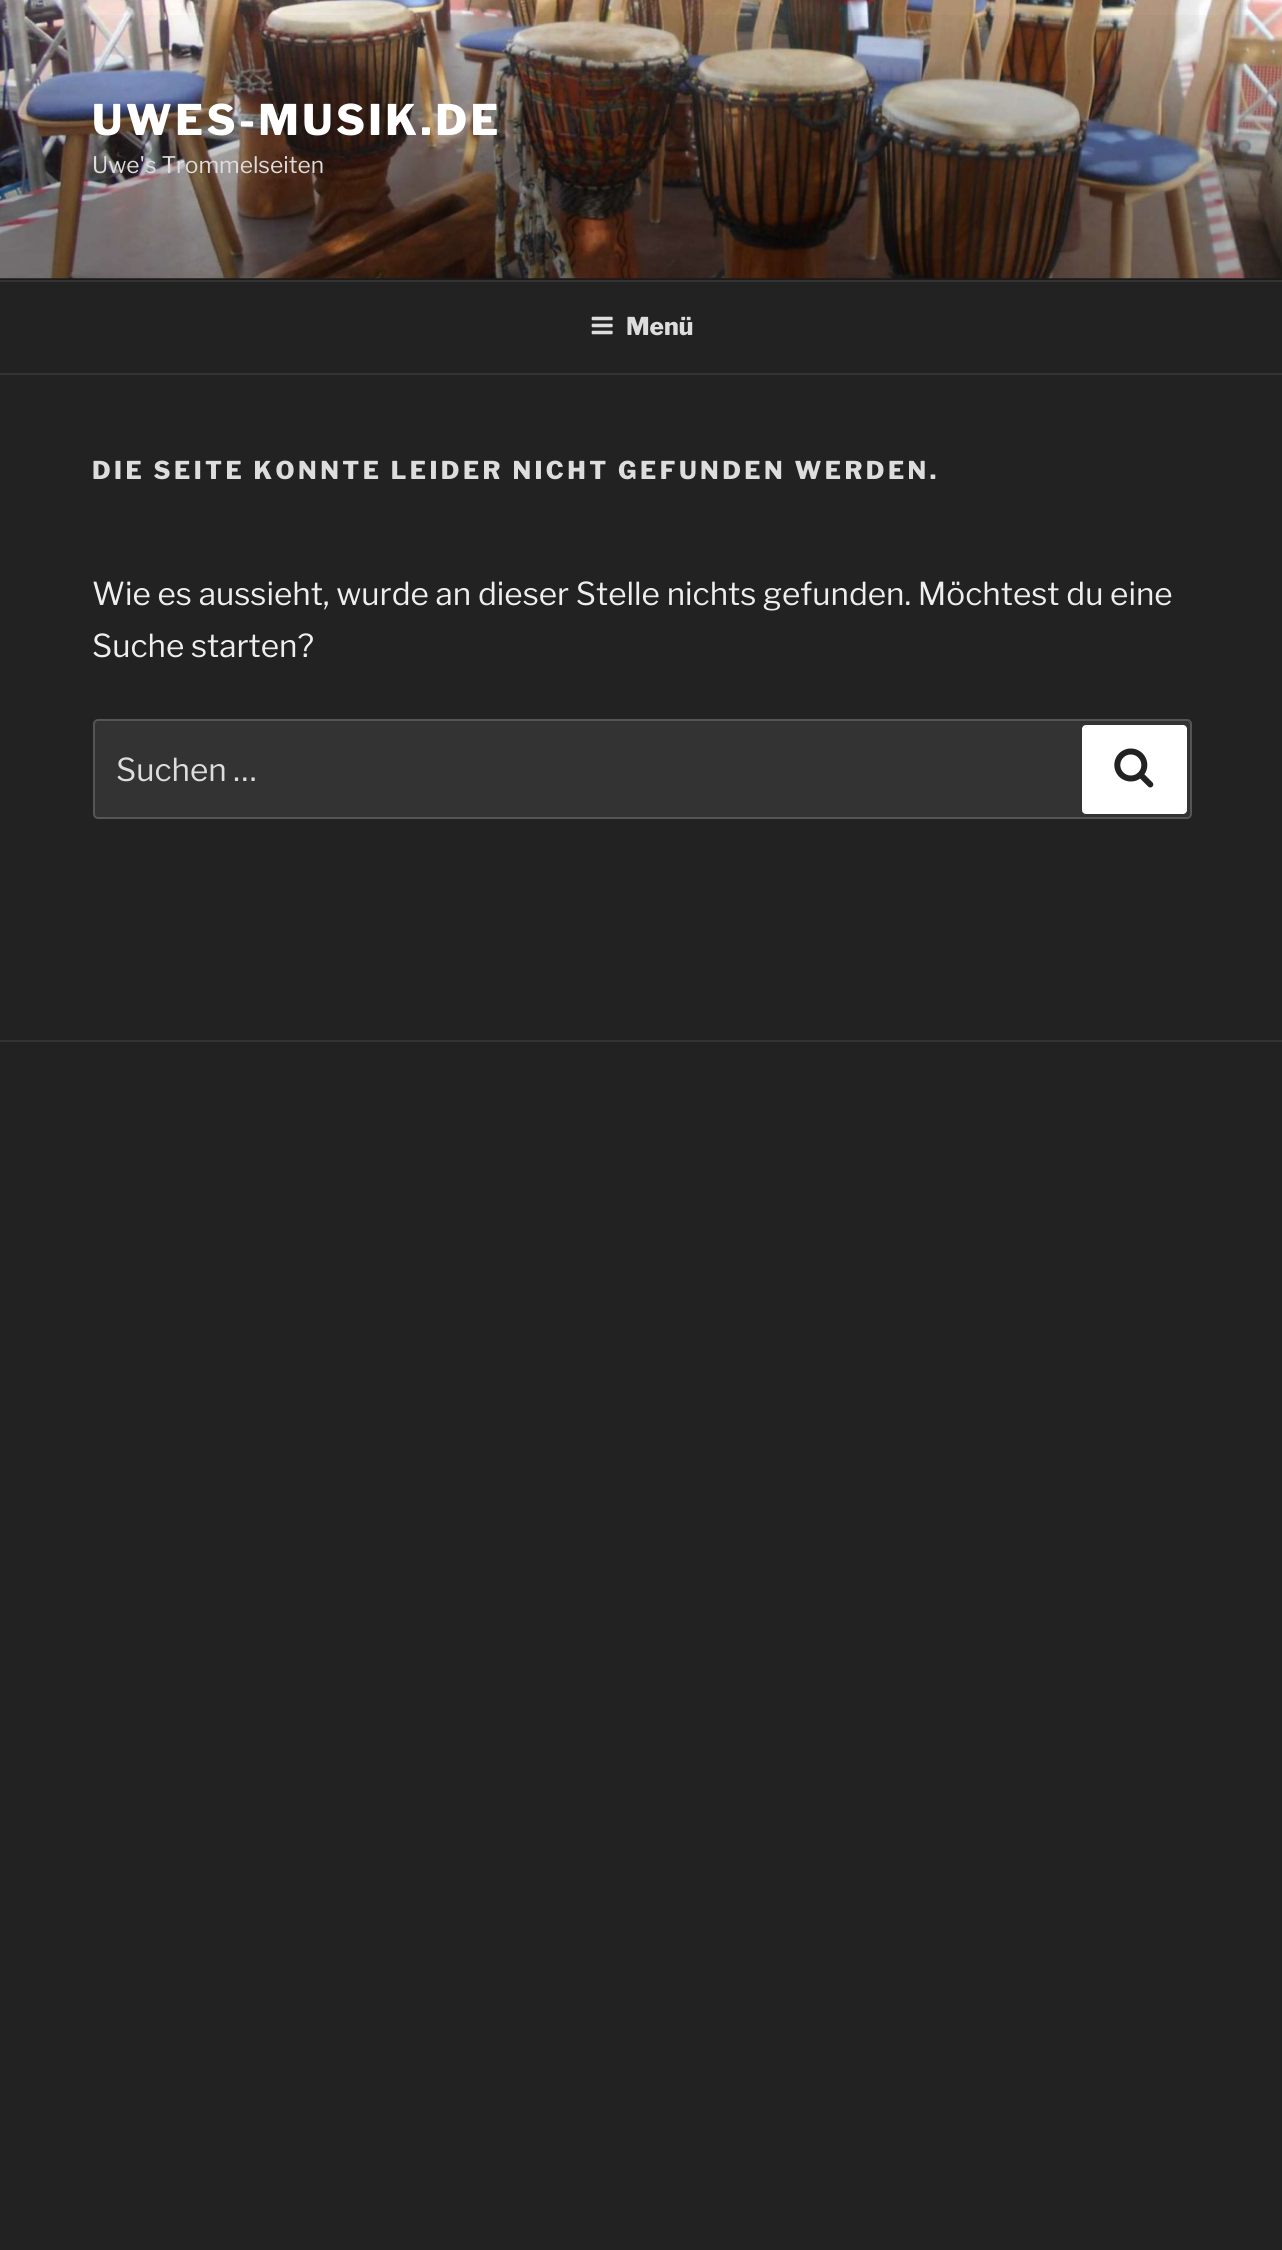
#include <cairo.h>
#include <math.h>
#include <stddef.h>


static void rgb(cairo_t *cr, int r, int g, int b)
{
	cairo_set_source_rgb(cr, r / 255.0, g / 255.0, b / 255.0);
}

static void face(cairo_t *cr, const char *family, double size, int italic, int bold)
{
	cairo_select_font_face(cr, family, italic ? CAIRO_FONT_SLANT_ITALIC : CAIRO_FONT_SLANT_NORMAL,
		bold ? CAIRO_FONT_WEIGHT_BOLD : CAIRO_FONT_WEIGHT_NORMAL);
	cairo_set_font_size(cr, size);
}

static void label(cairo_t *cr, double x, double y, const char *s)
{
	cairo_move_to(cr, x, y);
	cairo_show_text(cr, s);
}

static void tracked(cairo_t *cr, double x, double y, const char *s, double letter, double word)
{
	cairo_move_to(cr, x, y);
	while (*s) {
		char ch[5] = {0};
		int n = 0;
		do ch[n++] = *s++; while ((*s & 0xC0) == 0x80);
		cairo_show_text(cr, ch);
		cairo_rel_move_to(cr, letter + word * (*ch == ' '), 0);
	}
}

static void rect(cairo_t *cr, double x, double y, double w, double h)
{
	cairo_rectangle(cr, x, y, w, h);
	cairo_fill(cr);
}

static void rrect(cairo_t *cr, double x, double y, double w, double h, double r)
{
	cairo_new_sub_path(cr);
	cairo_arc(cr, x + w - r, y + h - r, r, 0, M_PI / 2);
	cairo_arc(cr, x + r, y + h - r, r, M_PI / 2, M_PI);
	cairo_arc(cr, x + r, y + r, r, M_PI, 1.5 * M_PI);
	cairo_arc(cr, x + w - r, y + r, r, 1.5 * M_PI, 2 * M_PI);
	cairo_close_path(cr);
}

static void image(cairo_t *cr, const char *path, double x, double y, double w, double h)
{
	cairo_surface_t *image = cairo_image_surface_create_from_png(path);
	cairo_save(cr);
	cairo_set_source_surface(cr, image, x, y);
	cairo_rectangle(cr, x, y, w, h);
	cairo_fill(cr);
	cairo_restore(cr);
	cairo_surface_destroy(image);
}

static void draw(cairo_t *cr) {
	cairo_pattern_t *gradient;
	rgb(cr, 34, 34, 34);
	cairo_paint(cr);
	rgb(cr, 38, 38, 38);
	rect(cr, 0, 278, 1282, 2);
	image(cr, "image0.png", 0, 0, 1282, 279);
	gradient = cairo_pattern_create_linear(641, 0, 641, 280);
	cairo_pattern_add_color_stop_rgba(gradient, 0, 0, 0, 0, 0);
	cairo_pattern_add_color_stop_rgba(gradient, 0.75, 0, 0, 0, 0.3);
	cairo_pattern_add_color_stop_rgba(gradient, 1, 0, 0, 0, 0.3);
	cairo_set_source(cr, gradient);
	cairo_pattern_destroy(gradient);
	rect(cr, 0, 15, 1282, 265);
	face(cr, "Libre Franklin Thin", 42, 0, 0);
	rgb(cr, 255, 255, 255);
	tracked(cr, 92, 135, "UWES-MUSIK.DE", 3.4, 0);
	face(cr, "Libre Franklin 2 Thin", 22.75, 0, 0);
	rgb(cr, 221, 221, 221);
	label(cr, 92, 173, "Uwe's Trommelseiten");
	rgb(cr, 51, 51, 51);
	rect(cr, 0, 280, 1282, 2);
	rect(cr, 0, 373, 1282, 2);
	image(cr, "image1.png", 591, 316, 22, 19);
	face(cr, "Libre Franklin Thin", 24.5, 0, 0);
	rgb(cr, 221, 221, 221);
	label(cr, 626, 335, "Menü");
	tracked(cr, 92, 479, "DIE SEITE KONNTE LEIDER NICHT GEFUNDEN WERDEN.", 3.45, 0);
	face(cr, "Libre Franklin 2 Thin", 31.5, 0, 0);
	rgb(cr, 238, 238, 238);
	label(cr, 92, 605, "Wie es aussieht, wurde an dieser Stelle nichts gefunden. Möchtest du eine");
	label(cr, 92, 657, "Suche starten?");
	rgb(cr, 51, 51, 51);
	rrect(cr, 94, 720, 1097, 98, 4);
	cairo_fill_preserve(cr);
	rgb(cr, 85, 85, 85);
	cairo_stroke(cr);
	rgb(cr, 221, 221, 221);
	label(cr, 116, 781, "Suchen …");
	rgb(cr, 255, 255, 255);
	rrect(cr, 1082, 725, 105, 89, 4);
	cairo_fill(cr);
	image(cr, "image2.png", 1114, 748, 40, 40);
	rgb(cr, 51, 51, 51);
	rect(cr, 0, 1040, 1282, 2);
}

int main(void) {
	cairo_surface_t *surface = cairo_image_surface_create(CAIRO_FORMAT_RGB24, 1282, 2250);
	cairo_t *cr = cairo_create(surface);
	cairo_font_options_t *options = cairo_font_options_create();
	cairo_font_options_set_hint_metrics(options, CAIRO_HINT_METRICS_OFF);
	cairo_font_options_set_hint_style(options, CAIRO_HINT_STYLE_NONE);
	cairo_set_font_options(cr, options);
	cairo_set_miter_limit(cr, 4);
	draw(cr);
	cairo_surface_write_to_png(surface, "render.png");
	cairo_font_options_destroy(options);
	cairo_destroy(cr);
	cairo_surface_destroy(surface);
	return 0;
}
